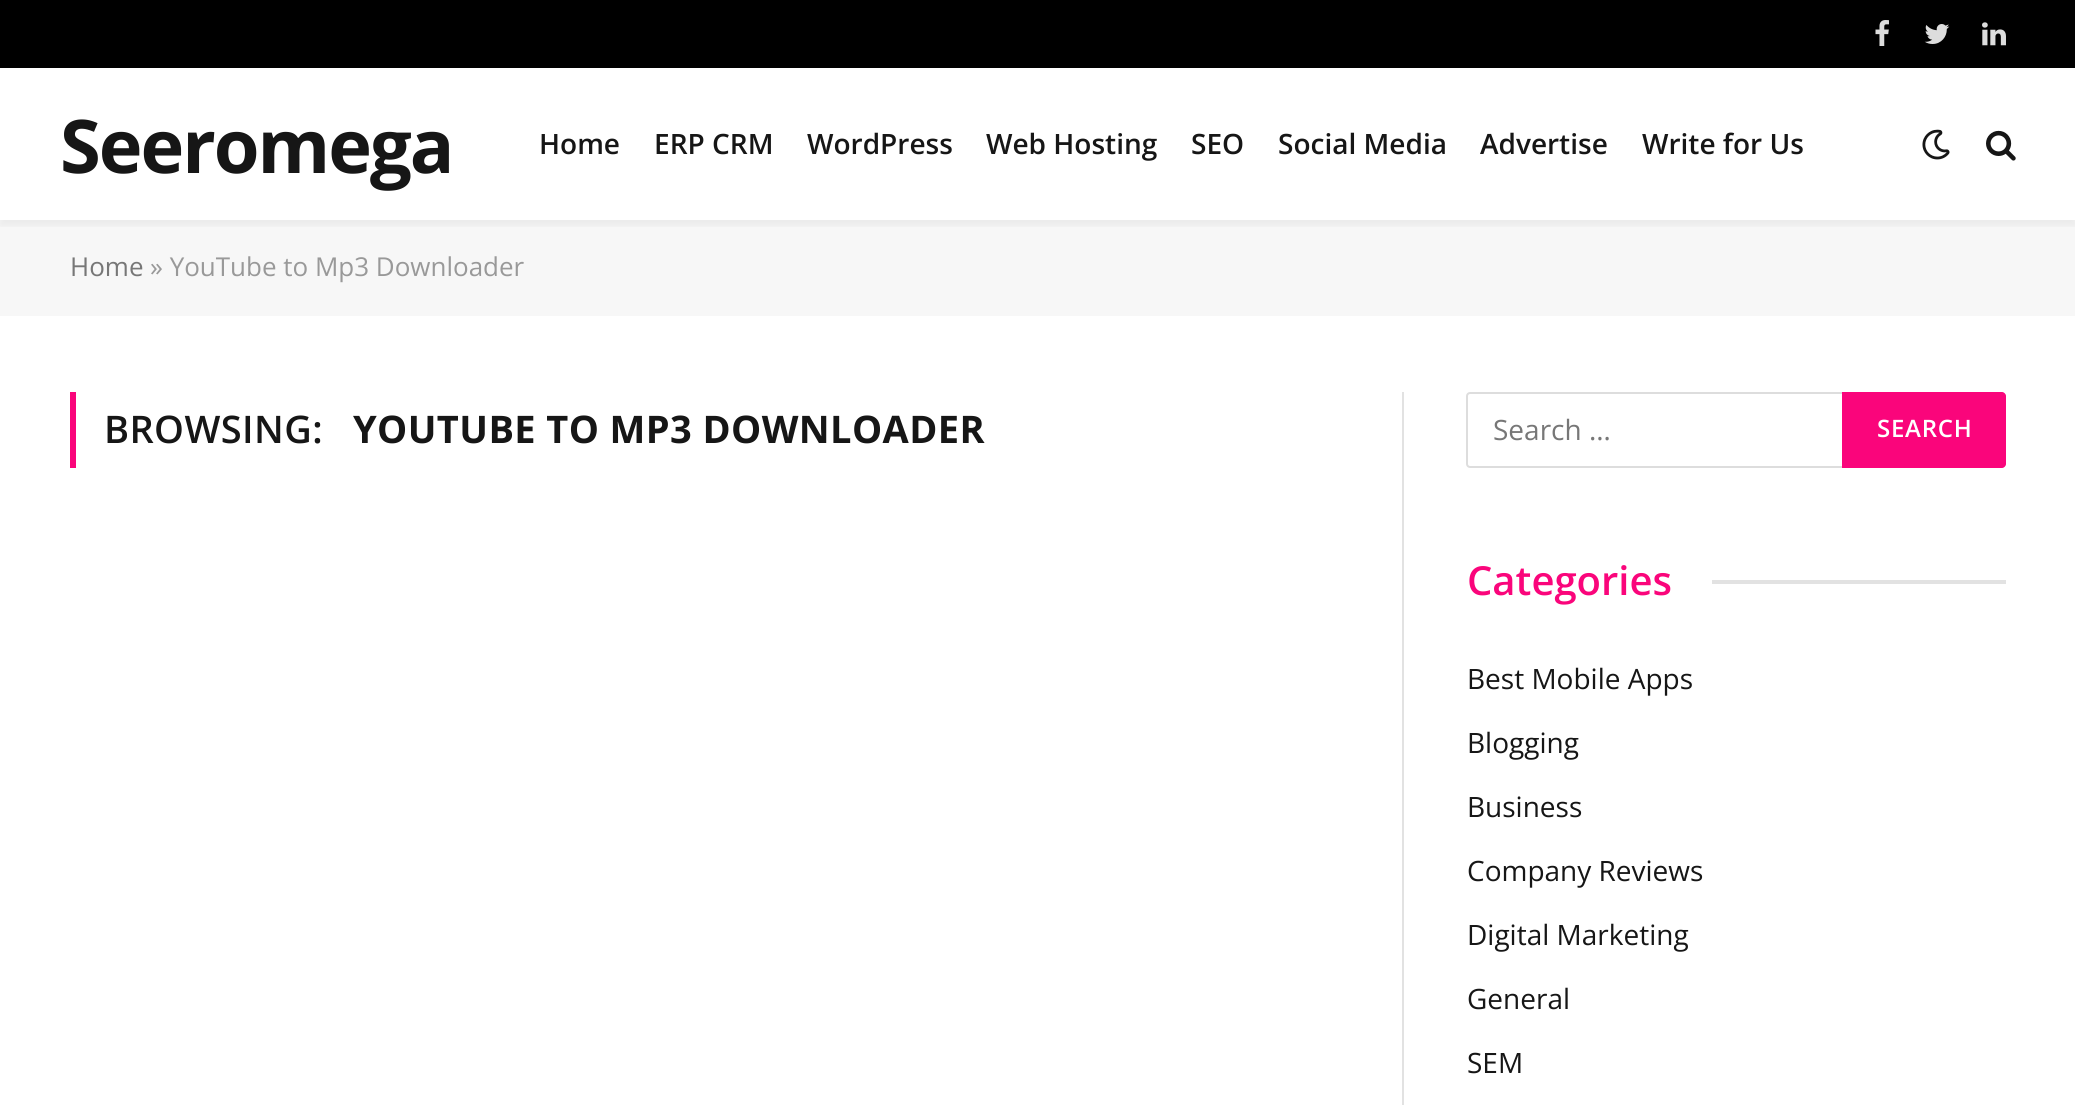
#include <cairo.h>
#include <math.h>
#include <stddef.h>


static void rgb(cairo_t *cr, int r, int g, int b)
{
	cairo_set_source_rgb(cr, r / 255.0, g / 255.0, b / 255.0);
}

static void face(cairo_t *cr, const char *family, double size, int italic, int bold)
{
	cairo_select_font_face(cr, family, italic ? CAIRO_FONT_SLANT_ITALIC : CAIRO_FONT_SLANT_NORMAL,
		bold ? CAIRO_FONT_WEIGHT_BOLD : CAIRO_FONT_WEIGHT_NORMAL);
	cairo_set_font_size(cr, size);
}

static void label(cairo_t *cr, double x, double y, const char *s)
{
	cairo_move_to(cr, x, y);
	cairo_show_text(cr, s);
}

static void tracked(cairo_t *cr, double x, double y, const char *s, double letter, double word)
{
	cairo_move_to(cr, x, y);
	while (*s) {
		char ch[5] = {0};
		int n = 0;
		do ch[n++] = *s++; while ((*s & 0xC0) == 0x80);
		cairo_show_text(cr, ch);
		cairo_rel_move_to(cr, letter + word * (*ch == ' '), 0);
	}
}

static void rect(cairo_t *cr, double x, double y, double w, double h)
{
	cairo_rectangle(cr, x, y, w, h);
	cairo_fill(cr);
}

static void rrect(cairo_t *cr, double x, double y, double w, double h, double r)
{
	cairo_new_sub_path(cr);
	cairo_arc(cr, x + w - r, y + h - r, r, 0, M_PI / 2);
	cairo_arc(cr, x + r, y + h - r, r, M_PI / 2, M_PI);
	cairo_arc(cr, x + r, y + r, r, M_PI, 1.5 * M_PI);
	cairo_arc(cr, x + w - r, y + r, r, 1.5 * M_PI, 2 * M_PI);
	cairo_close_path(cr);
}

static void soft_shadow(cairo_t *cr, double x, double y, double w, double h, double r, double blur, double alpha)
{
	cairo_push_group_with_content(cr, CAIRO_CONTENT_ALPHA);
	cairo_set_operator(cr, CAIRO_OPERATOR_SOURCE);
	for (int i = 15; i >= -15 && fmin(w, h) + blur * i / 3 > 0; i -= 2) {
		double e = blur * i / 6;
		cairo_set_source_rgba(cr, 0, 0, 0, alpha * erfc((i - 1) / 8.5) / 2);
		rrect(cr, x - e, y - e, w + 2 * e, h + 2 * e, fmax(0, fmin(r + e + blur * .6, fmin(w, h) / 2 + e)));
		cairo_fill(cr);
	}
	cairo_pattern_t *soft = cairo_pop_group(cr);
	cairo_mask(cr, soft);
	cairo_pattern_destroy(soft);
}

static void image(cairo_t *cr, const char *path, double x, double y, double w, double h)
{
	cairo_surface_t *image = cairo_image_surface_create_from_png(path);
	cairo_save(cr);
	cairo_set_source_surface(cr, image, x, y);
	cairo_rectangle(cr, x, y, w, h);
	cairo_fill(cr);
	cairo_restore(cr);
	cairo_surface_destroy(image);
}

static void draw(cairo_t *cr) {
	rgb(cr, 255, 255, 255);
	cairo_paint(cr);
	rgb(cr, 247, 247, 247);
	rect(cr, 0, 220, 2075, 96);
	cairo_save(cr);
	cairo_rectangle(cr, 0, 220, 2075, 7);
	cairo_clip(cr);
	rgb(cr, 0, 0, 0);
	soft_shadow(cr, 0, 6, 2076, 220, 0, 4, 0.05);
	cairo_restore(cr);
	rgb(cr, 0, 0, 0);
	rect(cr, 0, 0, 2075, 68);
	image(cr, "image0.png", 1875, 20, 14, 26);
	image(cr, "image1.png", 1924, 24, 26, 20);
	image(cr, "image2.png", 1982, 22, 24, 24);
	face(cr, "Open Sans", 74, 0, 1);
	rgb(cr, 22, 22, 22);
	tracked(cr, 60, 173, "Seeromega", -2, 0);
	face(cr, "Open Sans SemiBold", 28, 0, 0);
	label(cr, 539, 154, "Home");
	label(cr, 654, 154, "ERP CRM");
	label(cr, 807, 154, "WordPress");
	label(cr, 986, 154, "Web Hosting");
	label(cr, 1191, 154, "SEO");
	label(cr, 1278, 154, "Social Media");
	label(cr, 1480, 154, "Advertise");
	label(cr, 1642, 154, "Write for Us");
	image(cr, "image3.png", 1922, 129, 28, 31);
	image(cr, "image4.png", 1986, 130, 30, 31);
	face(cr, "Open Sans", 26, 0, 0);
	rgb(cr, 119, 119, 119);
	label(cr, 70, 276, "Home");
	rgb(cr, 153, 153, 153);
	label(cr, 150, 276, "» YouTube to Mp3 Downloader");
	rgb(cr, 250, 5, 123);
	rect(cr, 70, 392, 6, 76);
	face(cr, "Open Sans SemiBold", 38, 0, 0);
	rgb(cr, 22, 22, 22);
	tracked(cr, 104, 443, "BROWSING:", 0.4, 0);
	face(cr, "Open Sans", 38, 0, 1);
	tracked(cr, 353, 443, "YOUTUBE TO MP3 DOWNLOADER", 0.4, 0);
	rgb(cr, 226, 226, 226);
	rect(cr, 1402, 392, 2, 713);
	rrect(cr, 1467, 393, 378, 74, 3);
	rgb(cr, 221, 221, 221);
	cairo_stroke(cr);
	face(cr, "Open Sans", 28, 0, 0);
	rgb(cr, 119, 119, 119);
	label(cr, 1493, 440, "Search …");
	rgb(cr, 250, 5, 123);
	cairo_new_path(cr);
	cairo_move_to(cr, 1842, 392);
	cairo_line_to(cr, 2002, 392);
	cairo_curve_to(cr, 2004, 392, 2006, 394, 2006, 396);
	cairo_line_to(cr, 2006, 464);
	cairo_curve_to(cr, 2006, 466, 2004, 468, 2002, 468);
	cairo_line_to(cr, 1842, 468);
	cairo_close_path(cr);
	cairo_fill(cr);
	face(cr, "Open Sans SemiBold", 24, 0, 0);
	rgb(cr, 255, 255, 255);
	tracked(cr, 1877, 437, "SEARCH", 0.75, 0);
	face(cr, "Open Sans SemiBold", 40, 0, 0);
	rgb(cr, 250, 5, 123);
	label(cr, 1467, 595, "Categories");
	rgb(cr, 226, 226, 226);
	rect(cr, 1712, 580, 294, 4);
	face(cr, "Open Sans", 28, 0, 0);
	rgb(cr, 22, 22, 22);
	label(cr, 1467, 689, "Best Mobile Apps");
	label(cr, 1467, 753, "Blogging");
	label(cr, 1467, 817, "Business");
	label(cr, 1467, 881, "Company Reviews");
	label(cr, 1467, 945, "Digital Marketing");
	label(cr, 1467, 1009, "General");
	label(cr, 1467, 1073, "SEM");
}

int main(void) {
	cairo_surface_t *surface = cairo_image_surface_create(CAIRO_FORMAT_RGB24, 2075, 1105);
	cairo_t *cr = cairo_create(surface);
	cairo_font_options_t *options = cairo_font_options_create();
	cairo_font_options_set_hint_metrics(options, CAIRO_HINT_METRICS_OFF);
	cairo_font_options_set_hint_style(options, CAIRO_HINT_STYLE_NONE);
	cairo_set_font_options(cr, options);
	cairo_set_miter_limit(cr, 4);
	draw(cr);
	cairo_surface_write_to_png(surface, "render.png");
	cairo_font_options_destroy(options);
	cairo_destroy(cr);
	cairo_surface_destroy(surface);
	return 0;
}
